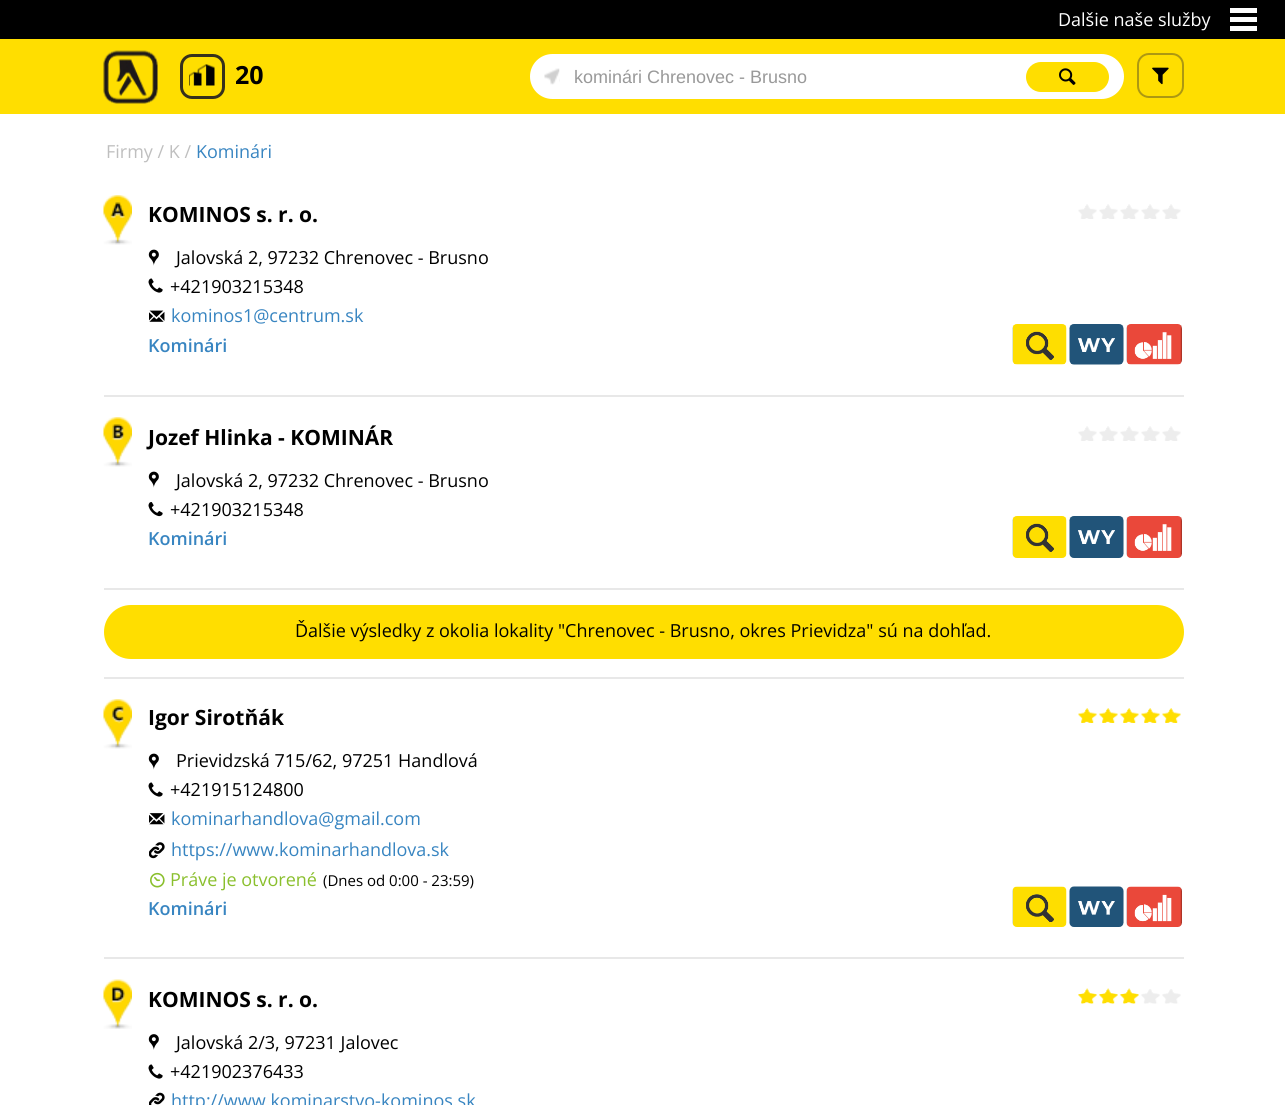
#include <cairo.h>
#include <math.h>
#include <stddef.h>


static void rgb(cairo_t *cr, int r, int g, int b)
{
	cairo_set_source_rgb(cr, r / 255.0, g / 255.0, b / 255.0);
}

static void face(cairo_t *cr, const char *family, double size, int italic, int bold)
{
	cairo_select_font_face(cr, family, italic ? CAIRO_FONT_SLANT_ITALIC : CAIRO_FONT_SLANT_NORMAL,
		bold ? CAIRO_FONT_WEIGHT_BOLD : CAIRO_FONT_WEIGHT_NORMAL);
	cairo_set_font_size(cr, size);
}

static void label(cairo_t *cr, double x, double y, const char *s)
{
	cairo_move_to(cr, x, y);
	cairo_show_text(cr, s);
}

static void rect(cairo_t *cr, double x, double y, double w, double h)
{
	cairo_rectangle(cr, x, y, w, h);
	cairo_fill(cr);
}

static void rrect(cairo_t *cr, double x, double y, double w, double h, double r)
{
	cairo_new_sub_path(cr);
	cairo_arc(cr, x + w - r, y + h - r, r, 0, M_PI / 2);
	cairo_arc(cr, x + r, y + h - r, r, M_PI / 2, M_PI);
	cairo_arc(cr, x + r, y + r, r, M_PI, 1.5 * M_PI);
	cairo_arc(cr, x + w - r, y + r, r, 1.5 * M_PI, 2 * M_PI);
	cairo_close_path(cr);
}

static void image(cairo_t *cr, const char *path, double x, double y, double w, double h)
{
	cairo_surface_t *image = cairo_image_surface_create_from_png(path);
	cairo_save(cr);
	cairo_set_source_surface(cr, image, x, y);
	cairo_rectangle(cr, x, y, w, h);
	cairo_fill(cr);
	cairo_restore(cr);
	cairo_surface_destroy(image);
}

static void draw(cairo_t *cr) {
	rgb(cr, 255, 255, 255);
	cairo_paint(cr);
	rgb(cr, 255, 222, 0);
	rect(cr, 0, 39, 1285, 75);
	rgb(cr, 0, 0, 0);
	rect(cr, 0, 0, 1285, 39);
	face(cr, "Open Sans", 18, 0, 0);
	rgb(cr, 255, 255, 255);
	label(cr, 1058, 26, "Dalšie naše služby");
	rect(cr, 1230, 17, 27, 5);
	rect(cr, 1230, 8, 27, 5);
	rect(cr, 1230, 26, 27, 5);
	image(cr, "image0.png", 103, 50, 55, 54);
	rrect(cr, 181.5, 55.5, 42, 42, 10.5);
	rgb(cr, 55, 48, 28);
	cairo_set_line_width(cr, 3);
	cairo_stroke(cr);
	image(cr, "image1.png", 189, 64, 26, 22);
	face(cr, "Open Sans", 25, 0, 1);
	rgb(cr, 0, 0, 0);
	label(cr, 235, 84, "20");
	rgb(cr, 255, 255, 255);
	rrect(cr, 530, 54, 594, 45, 22.5);
	cairo_fill(cr);
	image(cr, "image2.png", 544, 68, 16, 17);
	face(cr, "Liberation Sans", 18, 0, 0);
	rgb(cr, 153, 153, 153);
	label(cr, 574, 83, "kominári Chrenovec - Brusno");
	rgb(cr, 255, 222, 0);
	rrect(cr, 1026, 62, 83, 30, 15);
	cairo_fill(cr);
	image(cr, "image3.png", 1059, 68, 17, 17);
	rrect(cr, 1138, 54, 45, 43, 11);
	rgb(cr, 173, 152, 18);
	cairo_set_line_width(cr, 2);
	cairo_stroke(cr);
	image(cr, "image4.png", 1152, 67, 17, 18);
	face(cr, "Open Sans", 18, 0, 0);
	rgb(cr, 191, 191, 191);
	label(cr, 106, 158, "Firmy / K /");
	rgb(cr, 56, 133, 193);
	label(cr, 196, 158, "Kominári");
	rgb(cr, 232, 232, 232);
	rect(cr, 104, 395, 1080, 2);
	image(cr, "image5.png", 103, 195, 29, 50);
	face(cr, "Open Sans", 21, 0, 1);
	rgb(cr, 0, 0, 0);
	label(cr, 148, 222, "KOMINOS s. r. o.");
	image(cr, "image6.png", 1078, 204, 11, 15);
	image(cr, "image7.png", 1089, 207, 8, 12);
	image(cr, "image6.png", 1099, 204, 11, 15);
	image(cr, "image7.png", 1110, 207, 8, 12);
	image(cr, "image6.png", 1120, 204, 11, 15);
	image(cr, "image7.png", 1131, 207, 8, 12);
	image(cr, "image6.png", 1141, 204, 11, 15);
	image(cr, "image7.png", 1152, 207, 8, 12);
	image(cr, "image6.png", 1162, 204, 11, 15);
	image(cr, "image7.png", 1173, 207, 8, 12);
	image(cr, "image8.png", 148, 249, 11, 17);
	face(cr, "Open Sans", 18, 0, 0);
	label(cr, 176, 264, "Jalovská 2, 97232 Chrenovec - Brusno");
	image(cr, "image9.png", 148, 278, 15, 15);
	label(cr, 170, 293, "+421903215348");
	image(cr, "image10.png", 149, 310, 16, 12);
	rgb(cr, 56, 133, 193);
	label(cr, 171, 322, "kominos1@centrum.sk");
	face(cr, "Open Sans SemiBold", 18, 0, 0);
	label(cr, 148, 352, "Kominári");
	image(cr, "image11.png", 1012, 324, 55, 41);
	image(cr, "image12.png", 1069, 324, 55, 41);
	image(cr, "image13.png", 1126, 324, 56, 41);
	rgb(cr, 232, 232, 232);
	rect(cr, 104, 588, 1080, 2);
	image(cr, "image14.png", 103, 417, 29, 50);
	face(cr, "Open Sans", 21, 0, 1);
	rgb(cr, 0, 0, 0);
	label(cr, 148, 445, "Jozef Hlinka - KOMINÁR");
	image(cr, "image6.png", 1078, 426, 11, 15);
	image(cr, "image7.png", 1089, 429, 8, 12);
	image(cr, "image6.png", 1099, 426, 11, 15);
	image(cr, "image7.png", 1110, 429, 8, 12);
	image(cr, "image6.png", 1120, 426, 11, 15);
	image(cr, "image7.png", 1131, 429, 8, 12);
	image(cr, "image6.png", 1141, 426, 11, 15);
	image(cr, "image7.png", 1152, 429, 8, 12);
	image(cr, "image6.png", 1162, 426, 11, 15);
	image(cr, "image7.png", 1173, 429, 8, 12);
	image(cr, "image8.png", 148, 471, 11, 17);
	face(cr, "Open Sans", 18, 0, 0);
	label(cr, 176, 487, "Jalovská 2, 97232 Chrenovec - Brusno");
	image(cr, "image15.png", 148, 502, 15, 15);
	label(cr, 170, 516, "+421903215348");
	face(cr, "Open Sans SemiBold", 18, 0, 0);
	rgb(cr, 56, 133, 193);
	label(cr, 148, 545, "Kominári");
	image(cr, "image16.png", 1012, 516, 55, 42);
	image(cr, "image17.png", 1069, 516, 55, 42);
	image(cr, "image18.png", 1126, 516, 56, 42);
	rgb(cr, 232, 232, 232);
	rect(cr, 104, 677, 1080, 2);
	rgb(cr, 255, 222, 0);
	rrect(cr, 104, 605, 1080, 54, 27);
	cairo_fill(cr);
	face(cr, "Open Sans", 18, 0, 0);
	rgb(cr, 0, 0, 0);
	label(cr, 295, 637, "Ďalšie výsledky z okolia lokality \"Chrenovec - Brusno, okres Prievidza\" sú na dohľad.");
	rgb(cr, 232, 232, 232);
	rect(cr, 104, 957, 1080, 2);
	image(cr, "image19.png", 103, 699, 29, 50);
	face(cr, "Open Sans", 21, 0, 1);
	rgb(cr, 0, 0, 0);
	label(cr, 148, 725, "Igor Sirotňák");
	image(cr, "image20.png", 1078, 708, 11, 15);
	image(cr, "image21.png", 1089, 710, 8, 13);
	image(cr, "image20.png", 1099, 708, 11, 15);
	image(cr, "image21.png", 1110, 710, 8, 13);
	image(cr, "image20.png", 1120, 708, 11, 15);
	image(cr, "image21.png", 1131, 710, 8, 13);
	image(cr, "image20.png", 1141, 708, 11, 15);
	image(cr, "image21.png", 1152, 710, 8, 13);
	image(cr, "image20.png", 1162, 708, 11, 15);
	image(cr, "image21.png", 1173, 710, 8, 13);
	image(cr, "image8.png", 148, 753, 11, 17);
	face(cr, "Open Sans", 18, 0, 0);
	label(cr, 176, 767, "Prievidzská 715/62, 97251 Handlová");
	image(cr, "image9.png", 148, 782, 15, 15);
	label(cr, 170, 796, "+421915124800");
	image(cr, "image22.png", 149, 813, 16, 12);
	rgb(cr, 56, 133, 193);
	label(cr, 171, 825, "kominarhandlova@gmail.com");
	image(cr, "image23.png", 149, 842, 16, 17);
	label(cr, 171, 856, "https://www.kominarhandlova.sk");
	image(cr, "image24.png", 150, 872, 15, 16);
	rgb(cr, 138, 191, 45);
	label(cr, 170, 886, "Práve je otvorené");
	face(cr, "Open Sans", 15, 0, 0);
	rgb(cr, 0, 0, 0);
	label(cr, 323, 886, "(Dnes od 0:00 - 23:59)");
	face(cr, "Open Sans SemiBold", 18, 0, 0);
	rgb(cr, 56, 133, 193);
	label(cr, 148, 915, "Kominári");
	image(cr, "image25.png", 1012, 886, 55, 41);
	image(cr, "image26.png", 1069, 886, 55, 41);
	image(cr, "image27.png", 1126, 886, 56, 41);
	image(cr, "image28.png", 103, 979, 29, 50);
	face(cr, "Open Sans", 21, 0, 1);
	rgb(cr, 0, 0, 0);
	label(cr, 148, 1007, "KOMINOS s. r. o.");
	image(cr, "image29.png", 1078, 988, 11, 16);
	image(cr, "image30.png", 1089, 991, 8, 13);
	image(cr, "image29.png", 1099, 988, 11, 16);
	image(cr, "image30.png", 1110, 991, 8, 13);
	image(cr, "image29.png", 1120, 988, 11, 16);
	image(cr, "image30.png", 1131, 991, 8, 13);
	image(cr, "image31.png", 1141, 989, 11, 15);
	image(cr, "image32.png", 1152, 992, 8, 12);
	image(cr, "image31.png", 1162, 989, 11, 15);
	image(cr, "image32.png", 1173, 992, 8, 12);
	image(cr, "image33.png", 148, 1034, 11, 16);
	face(cr, "Open Sans", 18, 0, 0);
	label(cr, 176, 1049, "Jalovská 2/3, 97231 Jalovec");
	image(cr, "image9.png", 148, 1064, 15, 15);
	label(cr, 170, 1078, "+421902376433");
	image(cr, "image34.png", 149, 1092, 16, 13);
	rgb(cr, 56, 133, 193);
	label(cr, 171, 1107, "http://www.kominarstvo-kominos.sk");
}

int main(void) {
	cairo_surface_t *surface = cairo_image_surface_create(CAIRO_FORMAT_RGB24, 1285, 1105);
	cairo_t *cr = cairo_create(surface);
	cairo_font_options_t *options = cairo_font_options_create();
	cairo_font_options_set_hint_metrics(options, CAIRO_HINT_METRICS_OFF);
	cairo_font_options_set_hint_style(options, CAIRO_HINT_STYLE_NONE);
	cairo_set_font_options(cr, options);
	cairo_set_miter_limit(cr, 4);
	draw(cr);
	cairo_surface_write_to_png(surface, "render.png");
	cairo_font_options_destroy(options);
	cairo_destroy(cr);
	cairo_surface_destroy(surface);
	return 0;
}
